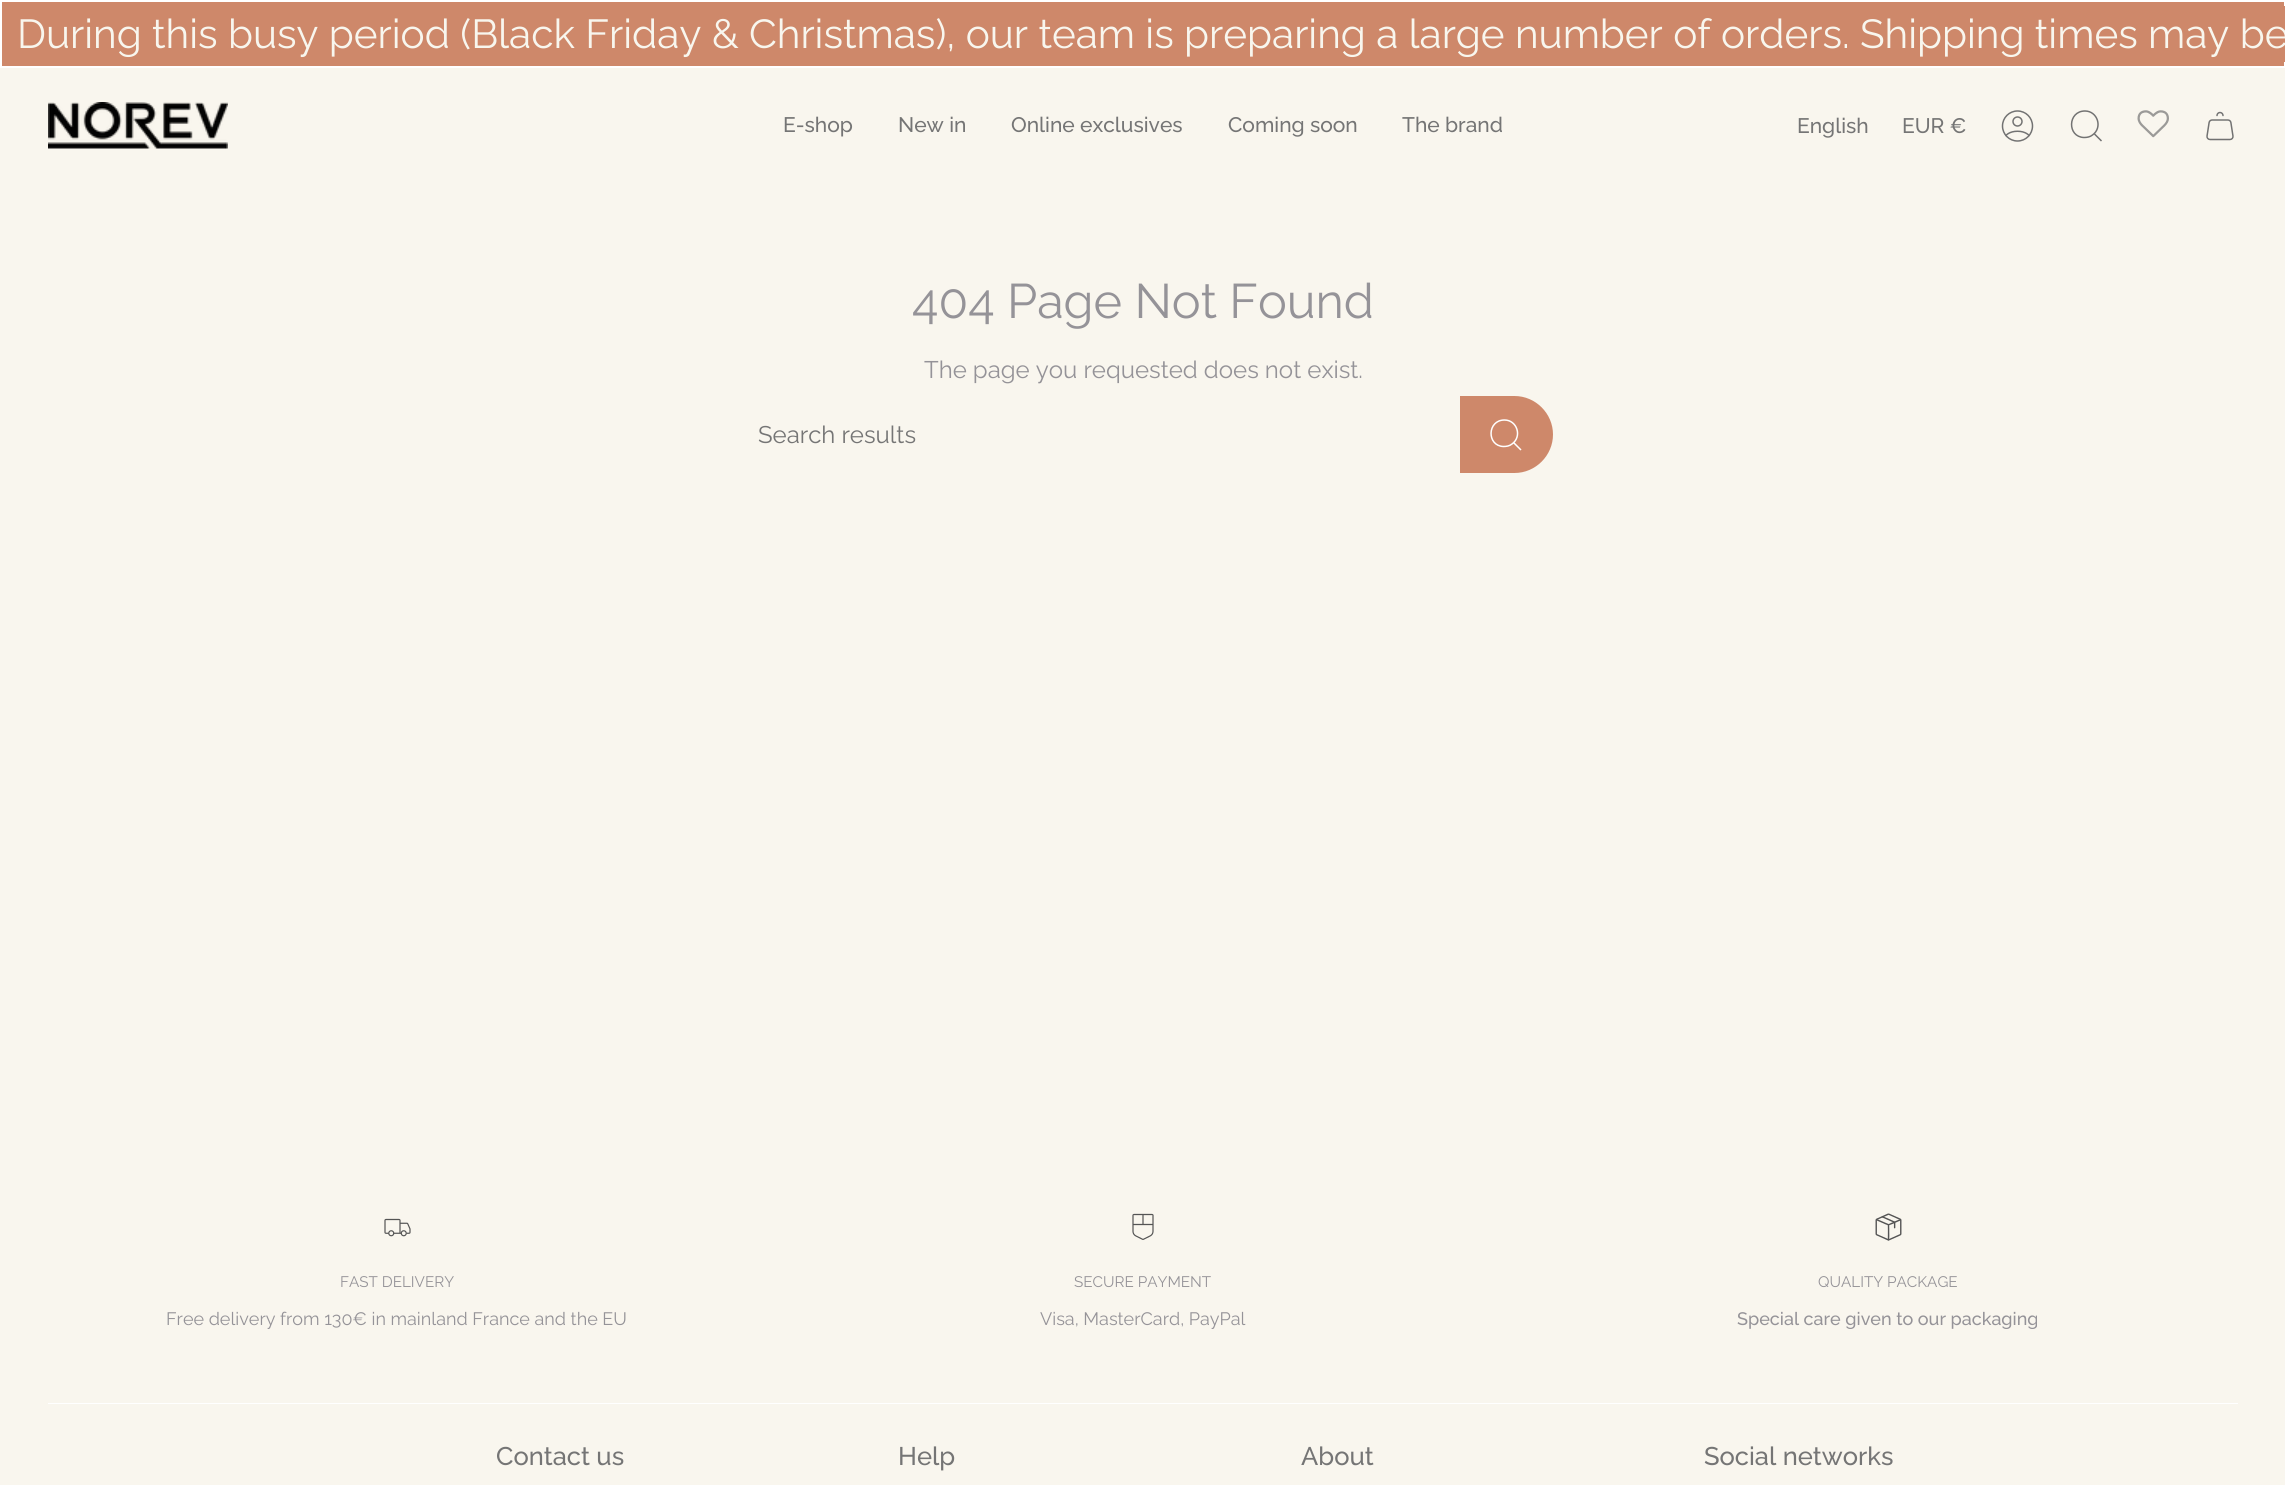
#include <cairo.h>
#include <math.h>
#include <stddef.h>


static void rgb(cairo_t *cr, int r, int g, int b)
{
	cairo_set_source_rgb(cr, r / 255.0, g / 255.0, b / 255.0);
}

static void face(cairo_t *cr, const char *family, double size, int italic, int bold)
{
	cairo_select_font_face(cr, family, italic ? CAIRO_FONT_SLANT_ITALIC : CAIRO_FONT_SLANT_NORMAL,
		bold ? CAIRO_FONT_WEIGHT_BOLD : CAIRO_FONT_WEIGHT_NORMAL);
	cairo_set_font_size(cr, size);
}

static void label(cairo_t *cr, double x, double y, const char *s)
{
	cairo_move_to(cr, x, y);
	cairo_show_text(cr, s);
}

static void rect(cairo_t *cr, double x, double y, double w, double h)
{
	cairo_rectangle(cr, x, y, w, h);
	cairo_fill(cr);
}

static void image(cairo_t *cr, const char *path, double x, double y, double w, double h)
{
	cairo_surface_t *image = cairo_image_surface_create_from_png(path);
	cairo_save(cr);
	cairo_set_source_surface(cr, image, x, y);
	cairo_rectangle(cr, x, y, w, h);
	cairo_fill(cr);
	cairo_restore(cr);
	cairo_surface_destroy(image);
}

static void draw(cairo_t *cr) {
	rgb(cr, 249, 246, 238);
	cairo_paint(cr);
	rgb(cr, 206, 136, 106);
	cairo_rectangle(cr, 1, 1, 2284, 66);
	cairo_fill_preserve(cr);
	rgb(cr, 255, 255, 255);
	cairo_stroke(cr);
	rgb(cr, 206, 136, 106);
	rect(cr, 2284, 6, 1, 56);
	face(cr, "Raleway", 40.5, 0, 0);
	rgb(cr, 248, 246, 238);
	label(cr, 17, 48, "During this busy period (Black Friday & Christmas), our team is preparing a large number of orders. Shipping times may be");
	image(cr, "image0.png", 48, 102, 180, 47);
	face(cr, "Raleway Medium", 21, 0, 0);
	rgb(cr, 117, 117, 117);
	label(cr, 783, 132, "E-shop");
	label(cr, 898, 132, "New in");
	label(cr, 1011, 132, "Online exclusives");
	label(cr, 1228, 132, "Coming soon");
	label(cr, 1402, 132, "The brand");
	label(cr, 1797, 133, "English");
	label(cr, 1902, 133, "EUR €");
	image(cr, "image1.png", 2001, 110, 33, 32);
	cairo_new_path(cr);
	cairo_move_to(cr, 2085, 111);
	cairo_curve_to(cr, 2097.5, 111, 2103, 127.5, 2092.5, 135);
	cairo_curve_to(cr, 2090, 137, 2087, 137.5, 2084, 137.5);
	cairo_curve_to(cr, 2067, 137, 2067.5, 111, 2085, 111);
	cairo_close_path(cr);
	cairo_move_to(cr, 2094, 133.5);
	cairo_line_to(cr, 2101.5, 141);
	rgb(cr, 114, 114, 114);
	cairo_set_line_width(cr, 1.5);
	cairo_stroke(cr);
	image(cr, "image2.png", 2137, 110, 32, 28);
	image(cr, "image3.png", 2206, 111, 28, 30);
	face(cr, "Raleway", 48.5, 0, 0);
	rgb(cr, 149, 147, 152);
	label(cr, 912, 318, "404 Page Not Found");
	face(cr, "Raleway", 24, 0, 0);
	label(cr, 924, 378, "The page you requested does not exist.");
	rgb(cr, 117, 117, 117);
	label(cr, 758, 443, "Search results");
	rgb(cr, 206, 136, 106);
	cairo_new_path(cr);
	cairo_move_to(cr, 1461, 397);
	cairo_line_to(cr, 1514.5, 397);
	cairo_curve_to(cr, 1535, 397, 1552, 414, 1552, 434.5);
	cairo_curve_to(cr, 1552, 455, 1535, 472, 1514.5, 472);
	cairo_line_to(cr, 1461, 472);
	cairo_close_path(cr);
	cairo_fill_preserve(cr);
	cairo_set_line_width(cr, 2);
	cairo_stroke(cr);
	cairo_new_path(cr);
	cairo_move_to(cr, 1504.5, 420);
	cairo_curve_to(cr, 1517, 420, 1522.5, 436.5, 1512, 444);
	cairo_curve_to(cr, 1509.5, 446, 1506.5, 446.5, 1503.5, 446.5);
	cairo_curve_to(cr, 1486.5, 446, 1487, 420, 1504.5, 420);
	cairo_close_path(cr);
	cairo_move_to(cr, 1513.5, 442.5);
	cairo_line_to(cr, 1521, 450);
	rgb(cr, 255, 255, 255);
	cairo_set_line_width(cr, 1.5);
	cairo_stroke(cr);
	image(cr, "image4.png", 384, 1218, 27, 19);
	face(cr, "Raleway", 15.25, 0, 0);
	rgb(cr, 149, 147, 152);
	label(cr, 340, 1287, "FAST DELIVERY");
	face(cr, "Raleway", 18, 0, 0);
	label(cr, 166, 1325, "Free delivery from 130€ in mainland France and the EU");
	image(cr, "image5.png", 1132, 1213, 22, 27);
	face(cr, "Raleway", 15.25, 0, 0);
	label(cr, 1074, 1287, "SECURE PAYMENT");
	face(cr, "Raleway", 18, 0, 0);
	label(cr, 1040, 1325, "Visa, MasterCard, PayPal");
	image(cr, "image6.png", 1875, 1213, 27, 28);
	face(cr, "Raleway", 15.25, 0, 0);
	label(cr, 1818, 1287, "QUALITY PACKAGE");
	face(cr, "Raleway Medium", 18, 0, 0);
	label(cr, 1737, 1325, "Special care given to our packaging");
	rgb(cr, 255, 255, 255);
	rect(cr, 48, 1403, 2190, 1);
	face(cr, "Raleway Medium", 25.5, 0, 0);
	rgb(cr, 117, 117, 117);
	label(cr, 496, 1465, "Contact us");
	label(cr, 898, 1465, "Help");
	label(cr, 1301, 1465, "About");
	label(cr, 1704, 1465, "Social networks");
}

int main(void) {
	cairo_surface_t *surface = cairo_image_surface_create(CAIRO_FORMAT_RGB24, 2285, 1485);
	cairo_t *cr = cairo_create(surface);
	cairo_font_options_t *options = cairo_font_options_create();
	cairo_font_options_set_hint_metrics(options, CAIRO_HINT_METRICS_OFF);
	cairo_font_options_set_hint_style(options, CAIRO_HINT_STYLE_NONE);
	cairo_set_font_options(cr, options);
	cairo_set_miter_limit(cr, 4);
	draw(cr);
	cairo_surface_write_to_png(surface, "render.png");
	cairo_font_options_destroy(options);
	cairo_destroy(cr);
	cairo_surface_destroy(surface);
	return 0;
}
